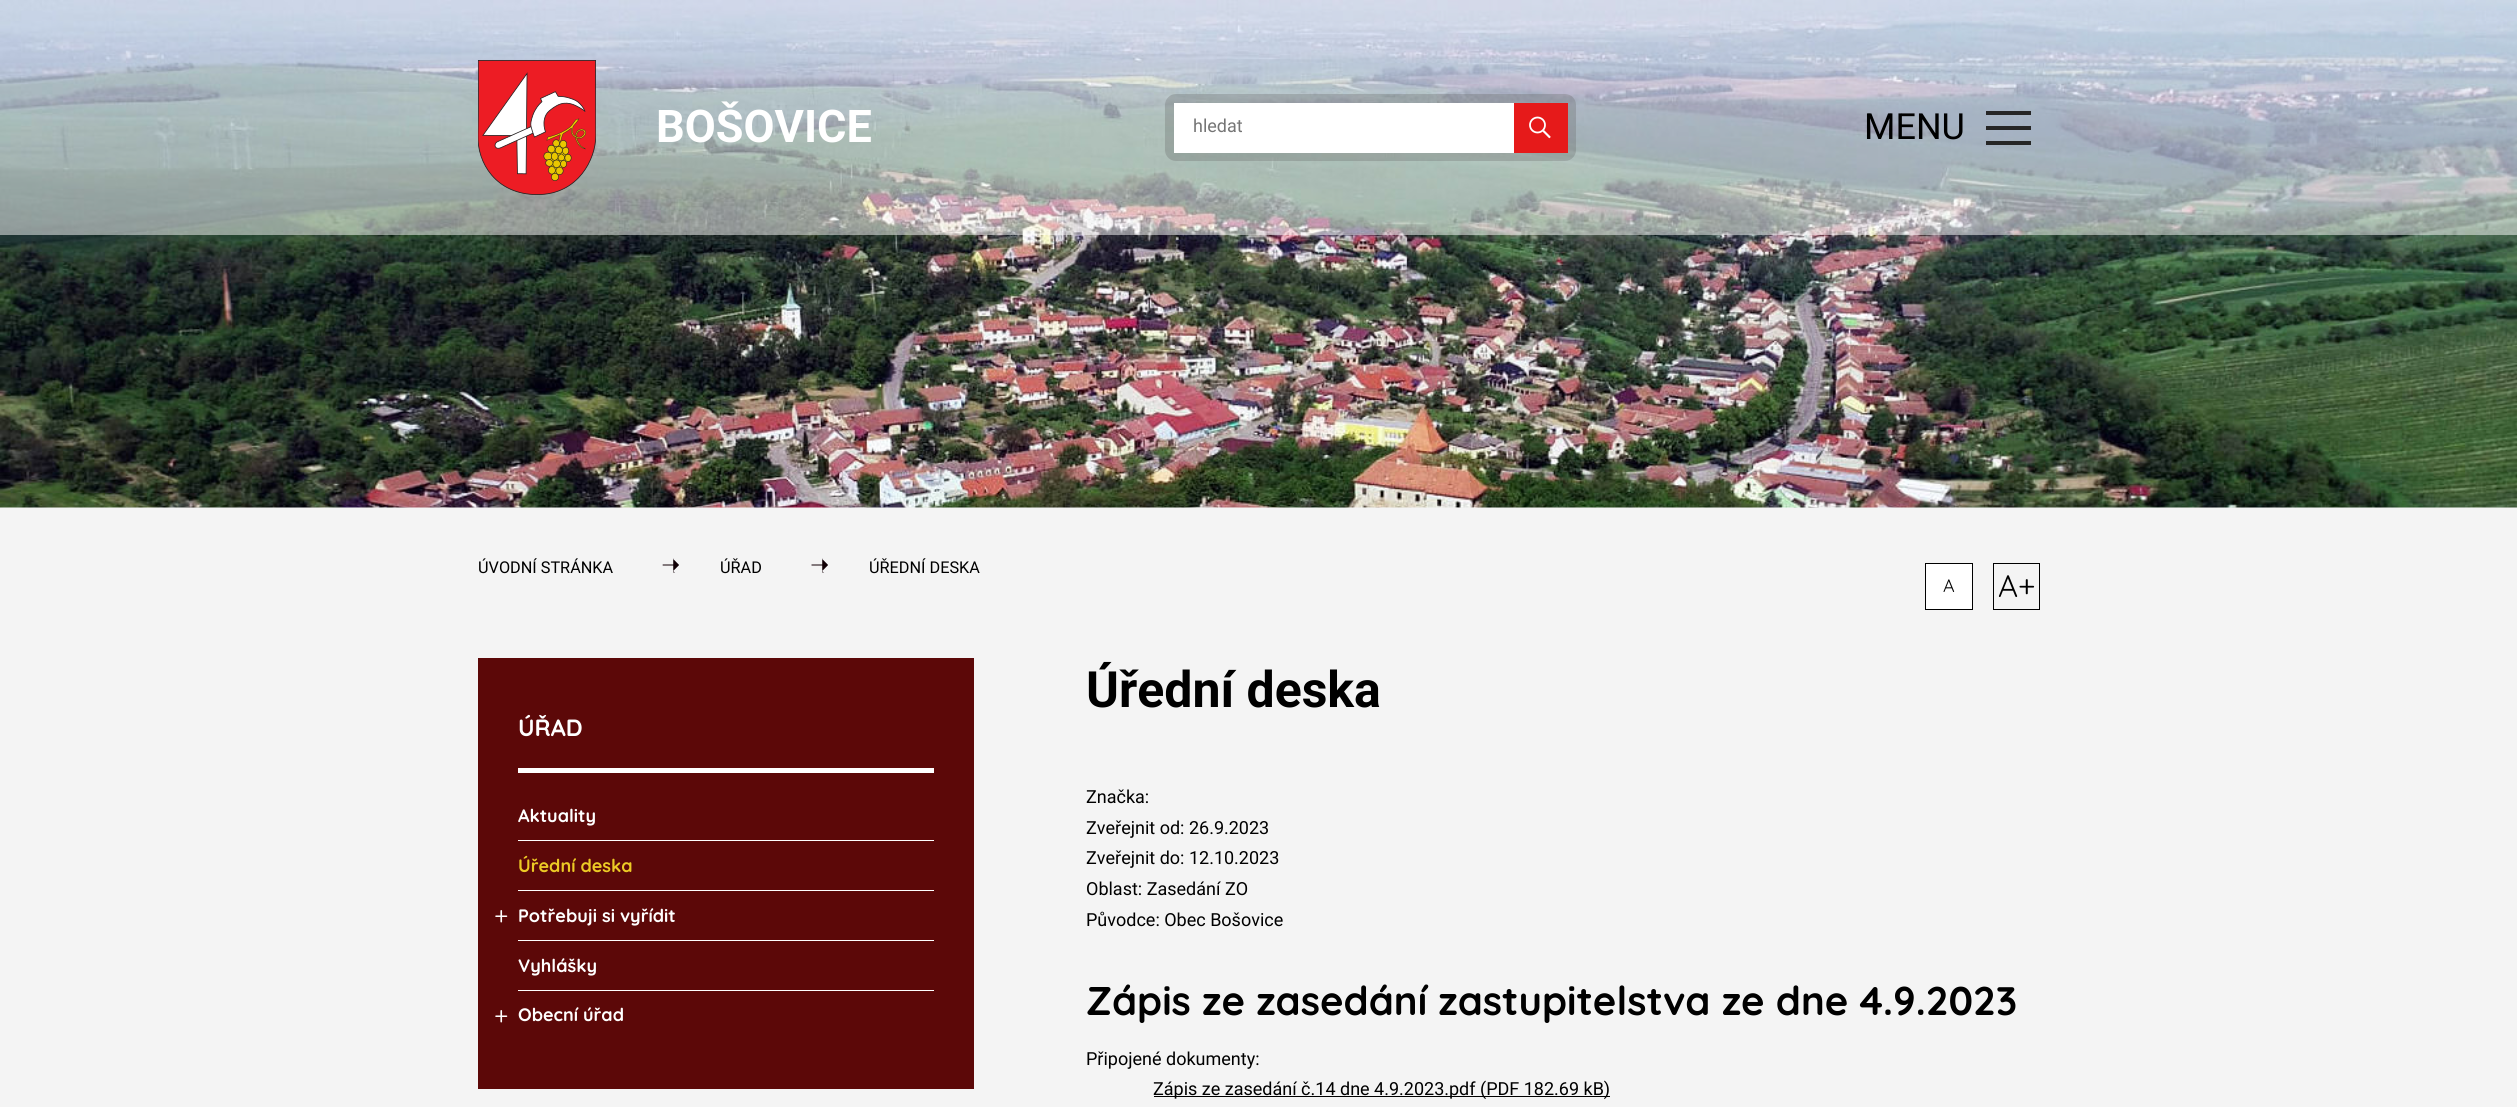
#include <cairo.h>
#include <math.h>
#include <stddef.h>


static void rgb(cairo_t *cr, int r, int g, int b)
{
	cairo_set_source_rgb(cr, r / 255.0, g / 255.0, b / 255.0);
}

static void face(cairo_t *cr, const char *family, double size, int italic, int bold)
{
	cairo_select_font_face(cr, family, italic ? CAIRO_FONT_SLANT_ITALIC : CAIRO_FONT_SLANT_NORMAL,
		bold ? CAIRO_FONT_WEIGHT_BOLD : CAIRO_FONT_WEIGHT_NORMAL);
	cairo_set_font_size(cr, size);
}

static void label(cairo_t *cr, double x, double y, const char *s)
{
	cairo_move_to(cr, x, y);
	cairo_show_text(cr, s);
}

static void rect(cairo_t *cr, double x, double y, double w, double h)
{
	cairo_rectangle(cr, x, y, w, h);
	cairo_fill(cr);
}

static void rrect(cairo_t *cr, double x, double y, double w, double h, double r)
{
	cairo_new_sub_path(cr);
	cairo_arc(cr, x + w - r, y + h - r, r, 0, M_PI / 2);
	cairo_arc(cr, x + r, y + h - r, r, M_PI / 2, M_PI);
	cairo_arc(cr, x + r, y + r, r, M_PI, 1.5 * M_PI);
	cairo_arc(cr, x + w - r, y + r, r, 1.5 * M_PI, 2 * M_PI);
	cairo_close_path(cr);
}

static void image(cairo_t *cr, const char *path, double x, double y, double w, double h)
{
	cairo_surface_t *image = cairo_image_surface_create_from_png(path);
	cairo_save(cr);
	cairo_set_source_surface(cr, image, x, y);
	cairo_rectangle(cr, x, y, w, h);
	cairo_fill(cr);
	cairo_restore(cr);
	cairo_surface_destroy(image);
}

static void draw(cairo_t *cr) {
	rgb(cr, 244, 244, 244);
	cairo_paint(cr);
	image(cr, "image0.png", 0, 0, 2517, 508);
	cairo_set_source_rgba(cr, 1, 1, 1, 0.5);
	rect(cr, 0, 0, 2517, 235);
	image(cr, "image1.png", 478, 60, 118, 135);
	face(cr, "Roboto", 45, 0, 1);
	rgb(cr, 255, 255, 255);
	label(cr, 656, 142, "BOŠOVICE");
	rrect(cr, 1169.5, 98.5, 402, 58, 6.5);
	cairo_set_source_rgba(cr, 0.392, 0.392, 0.392, 0.3);
	cairo_set_line_width(cr, 9);
	cairo_stroke(cr);
	rgb(cr, 255, 255, 255);
	rect(cr, 1174, 103, 340, 50);
	face(cr, "Roboto", 18, 0, 0);
	rgb(cr, 117, 117, 117);
	label(cr, 1193, 132, "hledat");
	rgb(cr, 230, 26, 26);
	rect(cr, 1514, 103, 54, 50);
	image(cr, "image2.png", 1529, 116, 22, 23);
	face(cr, "Roboto", 36, 0, 0);
	rgb(cr, 0, 0, 0);
	label(cr, 1864, 139, "MENU");
	rgb(cr, 38, 38, 38);
	rect(cr, 1986, 141, 45, 4);
	rect(cr, 1986, 111, 45, 4);
	rect(cr, 1986, 126, 45, 4);
	face(cr, "Roboto", 16.25, 0, 0);
	rgb(cr, 0, 0, 0);
	label(cr, 478, 573, "ÚVODNÍ STRÁNKA");
	image(cr, "image3.png", 662, 558, 17, 15);
	label(cr, 720, 573, "ÚŘAD");
	image(cr, "image4.png", 811, 558, 17, 15);
	label(cr, 869, 573, "ÚŘEDNÍ DESKA");
	rgb(cr, 255, 255, 255);
	cairo_rectangle(cr, 1925.5, 563.5, 47, 46);
	cairo_fill_preserve(cr);
	rgb(cr, 0, 0, 0);
	cairo_set_line_width(cr, 1);
	cairo_stroke(cr);
	face(cr, "Quicksand", 18, 0, 0);
	label(cr, 1943, 592, "A");
	cairo_rectangle(cr, 1993.5, 563.5, 46, 46);
	cairo_stroke(cr);
	face(cr, "Quicksand", 31, 0, 0);
	label(cr, 1998, 597, "A+");
	rgb(cr, 92, 8, 8);
	rect(cr, 478, 658, 496, 431);
	rgb(cr, 255, 255, 255);
	rect(cr, 518, 768, 416, 5);
	face(cr, "Quicksand", 23.5, 0, 1);
	label(cr, 518, 736, "ÚŘAD");
	face(cr, "Quicksand", 18, 0, 1);
	label(cr, 518, 822, "Aktuality");
	rect(cr, 518, 840, 416, 1);
	rgb(cr, 236, 202, 37);
	label(cr, 518, 872, "Úřední deska");
	rgb(cr, 255, 255, 255);
	rect(cr, 518, 890, 416, 1);
	image(cr, "image5.png", 495, 910, 13, 13);
	label(cr, 518, 922, "Potřebuji si vyřídit");
	rect(cr, 518, 940, 416, 1);
	label(cr, 518, 972, "Vyhlášky");
	rect(cr, 518, 990, 416, 1);
	image(cr, "image5.png", 495, 1010, 13, 13);
	label(cr, 518, 1021, "Obecní úřad");
	face(cr, "Roboto", 50, 0, 1);
	rgb(cr, 0, 0, 0);
	label(cr, 1086, 707, "Úřední deska");
	face(cr, "Roboto", 18, 0, 0);
	label(cr, 1086, 803, "Značka:");
	label(cr, 1086, 834, "Zveřejnit od: 26.9.2023");
	label(cr, 1086, 864, "Zveřejnit do: 12.10.2023");
	label(cr, 1086, 895, "Oblast: Zasedání ZO");
	label(cr, 1086, 926, "Původce: Obec Bošovice");
	face(cr, "Quicksand", 40, 0, 1);
	label(cr, 1086, 1015, "Zápis ze zasedání zastupitelstva ze dne 4.9.2023");
	face(cr, "Roboto", 18, 0, 0);
	label(cr, 1086, 1065, "Připojené dokumenty:");
	rect(cr, 1154, 1096, 456, 1);
	label(cr, 1153, 1095, "Zápis ze zasedání č.14 dne 4.9.2023.pdf (PDF 182.69 kB)");
}

int main(void) {
	cairo_surface_t *surface = cairo_image_surface_create(CAIRO_FORMAT_RGB24, 2517, 1107);
	cairo_t *cr = cairo_create(surface);
	cairo_font_options_t *options = cairo_font_options_create();
	cairo_font_options_set_hint_metrics(options, CAIRO_HINT_METRICS_OFF);
	cairo_font_options_set_hint_style(options, CAIRO_HINT_STYLE_NONE);
	cairo_set_font_options(cr, options);
	cairo_set_miter_limit(cr, 4);
	draw(cr);
	cairo_surface_write_to_png(surface, "render.png");
	cairo_font_options_destroy(options);
	cairo_destroy(cr);
	cairo_surface_destroy(surface);
	return 0;
}
